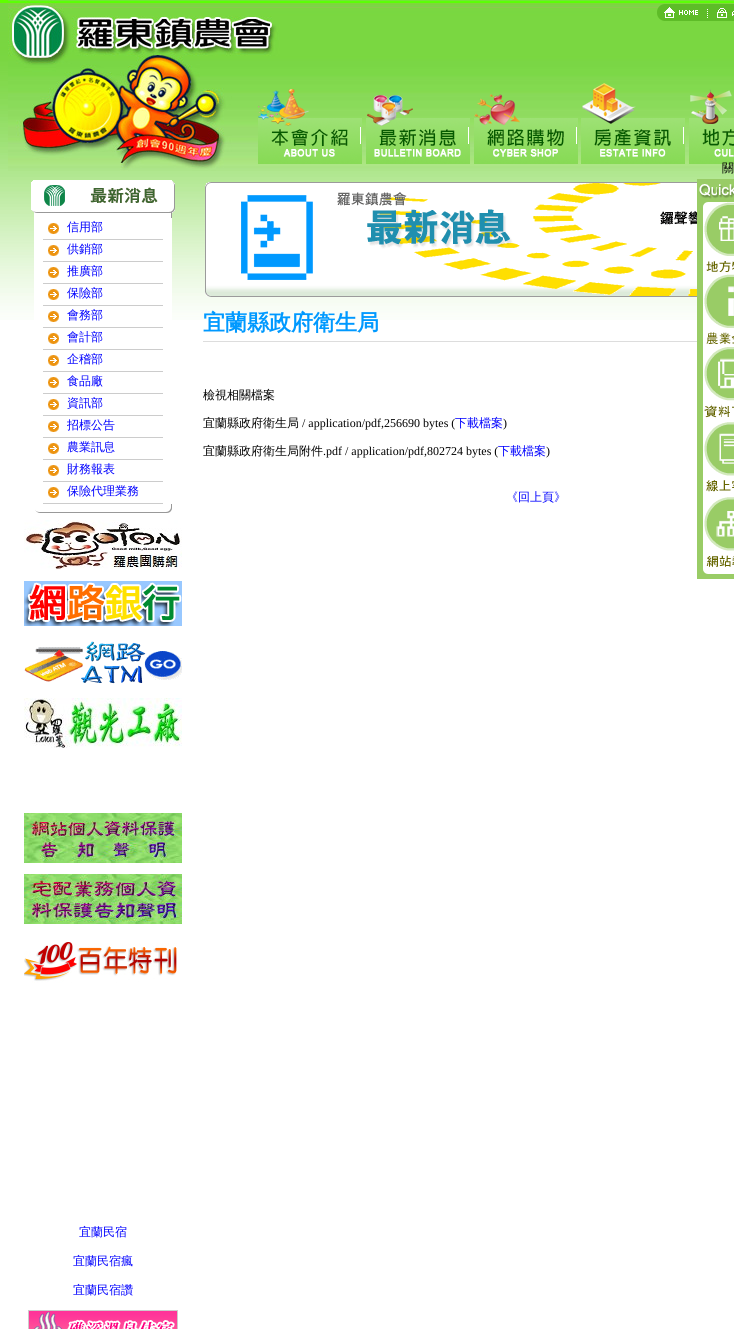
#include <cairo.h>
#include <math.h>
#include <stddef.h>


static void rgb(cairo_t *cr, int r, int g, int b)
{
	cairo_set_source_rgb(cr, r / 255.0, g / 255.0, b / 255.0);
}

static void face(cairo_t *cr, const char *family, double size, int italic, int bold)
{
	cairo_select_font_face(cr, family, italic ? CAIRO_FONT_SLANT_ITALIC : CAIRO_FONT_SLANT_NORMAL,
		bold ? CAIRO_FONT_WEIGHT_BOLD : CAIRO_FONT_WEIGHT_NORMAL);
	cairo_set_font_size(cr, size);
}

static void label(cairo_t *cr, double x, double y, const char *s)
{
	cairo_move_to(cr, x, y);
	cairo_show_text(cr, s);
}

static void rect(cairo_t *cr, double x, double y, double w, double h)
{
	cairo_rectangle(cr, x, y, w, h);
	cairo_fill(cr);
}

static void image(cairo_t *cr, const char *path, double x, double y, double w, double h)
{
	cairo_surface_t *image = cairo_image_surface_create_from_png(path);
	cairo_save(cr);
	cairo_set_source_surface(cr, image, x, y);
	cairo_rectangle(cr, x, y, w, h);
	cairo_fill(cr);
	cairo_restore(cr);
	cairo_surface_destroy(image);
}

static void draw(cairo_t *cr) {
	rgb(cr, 255, 255, 255);
	cairo_paint(cr);
	image(cr, "image0.png", 0, 0, 734, 320);
	image(cr, "image1.png", 8, 0, 726, 171);
	image(cr, "image2.png", 657, 4, 77, 17);
	image(cr, "image3.png", 258, 89, 104, 75);
	image(cr, "image4.png", 366, 95, 104, 69);
	image(cr, "image5.png", 474, 94, 104, 70);
	image(cr, "image6.png", 581, 83, 104, 81);
	image(cr, "image7.png", 689, 89, 45, 75);
	face(cr, "WenQuanYi Zen Hei Medium", 12, 0, 0);
	rgb(cr, 0, 0, 0);
	label(cr, 722, 172, "關");
	image(cr, "image8.png", 697, 179, 37, 400);
	image(cr, "image9.png", 31, 180, 144, 38);
	rgb(cr, 255, 255, 255);
	rect(cr, 34, 218, 138, 102);
	image(cr, "image10.png", 48, 223, 11, 11);
	rgb(cr, 0, 0, 255);
	label(cr, 67, 231, "信用部");
	rgb(cr, 204, 204, 204);
	rect(cr, 43, 239, 120, 1);
	image(cr, "image10.png", 48, 245, 11, 11);
	rgb(cr, 0, 0, 255);
	label(cr, 67, 253, "供銷部");
	rgb(cr, 204, 204, 204);
	rect(cr, 43, 261, 120, 1);
	image(cr, "image10.png", 48, 267, 11, 11);
	rgb(cr, 0, 0, 255);
	label(cr, 67, 275, "推廣部");
	rgb(cr, 204, 204, 204);
	rect(cr, 43, 283, 120, 1);
	image(cr, "image10.png", 48, 289, 11, 11);
	rgb(cr, 0, 0, 255);
	label(cr, 67, 297, "保險部");
	rgb(cr, 204, 204, 204);
	rect(cr, 43, 305, 120, 1);
	image(cr, "image10.png", 48, 311, 11, 11);
	rgb(cr, 0, 0, 255);
	label(cr, 67, 319, "會務部");
	rgb(cr, 204, 204, 204);
	rect(cr, 43, 327, 120, 1);
	image(cr, "image10.png", 48, 333, 11, 11);
	rgb(cr, 0, 0, 255);
	label(cr, 67, 341, "會計部");
	rgb(cr, 204, 204, 204);
	rect(cr, 43, 349, 120, 1);
	image(cr, "image10.png", 48, 355, 11, 11);
	rgb(cr, 0, 0, 255);
	label(cr, 67, 363, "企稽部");
	rgb(cr, 204, 204, 204);
	rect(cr, 43, 371, 120, 1);
	image(cr, "image10.png", 48, 377, 11, 11);
	rgb(cr, 0, 0, 255);
	label(cr, 67, 385, "食品廠");
	rgb(cr, 204, 204, 204);
	rect(cr, 43, 393, 120, 1);
	image(cr, "image10.png", 48, 399, 11, 11);
	rgb(cr, 0, 0, 255);
	label(cr, 67, 407, "資訊部");
	rgb(cr, 204, 204, 204);
	rect(cr, 43, 415, 120, 1);
	image(cr, "image10.png", 48, 421, 11, 11);
	rgb(cr, 0, 0, 255);
	label(cr, 67, 429, "招標公告");
	rgb(cr, 204, 204, 204);
	rect(cr, 43, 437, 120, 1);
	image(cr, "image10.png", 48, 443, 11, 11);
	rgb(cr, 0, 0, 255);
	label(cr, 67, 451, "農業訊息");
	rgb(cr, 204, 204, 204);
	rect(cr, 43, 459, 120, 1);
	image(cr, "image10.png", 48, 465, 11, 11);
	rgb(cr, 0, 0, 255);
	label(cr, 67, 473, "財務報表");
	rgb(cr, 204, 204, 204);
	rect(cr, 43, 481, 120, 1);
	image(cr, "image10.png", 48, 487, 11, 11);
	rgb(cr, 0, 0, 255);
	label(cr, 67, 495, "保險代理業務");
	rgb(cr, 204, 204, 204);
	rect(cr, 43, 503, 120, 1);
	image(cr, "image11.png", 35, 504, 137, 9);
	image(cr, "image12.png", 24, 520, 158, 50);
	image(cr, "image13.png", 24, 581, 158, 45);
	image(cr, "image14.png", 24, 641, 158, 43);
	image(cr, "image15.png", 24, 698, 158, 50);
	image(cr, "image16.png", 24, 813, 158, 50);
	image(cr, "image17.png", 24, 874, 158, 50);
	image(cr, "image18.png", 24, 942, 153, 41);
	rgb(cr, 0, 0, 255);
	label(cr, 79, 1236, "宜蘭民宿");
	label(cr, 73, 1265, "宜蘭民宿瘋");
	label(cr, 73, 1294, "宜蘭民宿讚");
	image(cr, "image19.png", 28, 1310, 150, 19);
	image(cr, "image20.png", 205, 182, 492, 115);
	face(cr, "WenQuanYi Zen Hei", 22, 0, 1);
	rgb(cr, 0, 153, 255);
	label(cr, 203, 330, "宜蘭縣政府衛生局");
	rgb(cr, 221, 221, 221);
	rect(cr, 203, 341, 494, 1);
	face(cr, "WenQuanYi Zen Hei Medium", 12, 0, 0);
	rgb(cr, 0, 0, 0);
	label(cr, 203, 399, "檢視相關檔案");
	label(cr, 203, 427, "宜蘭縣政府衛生局");
	face(cr, "Liberation Serif", 12, 0, 0);
	label(cr, 302, 427, "/ application/pdf,256690 bytes (");
	face(cr, "WenQuanYi Zen Hei Medium", 12, 0, 0);
	rgb(cr, 0, 0, 255);
	label(cr, 455, 427, "下載檔案");
	face(cr, "Liberation Serif", 12, 0, 0);
	rgb(cr, 0, 0, 0);
	label(cr, 503, 427, ")");
	face(cr, "WenQuanYi Zen Hei Medium", 12, 0, 0);
	label(cr, 203, 455, "宜蘭縣政府衛生局附件");
	face(cr, "Liberation Serif", 12, 0, 0);
	label(cr, 323, 455, ".pdf / application/pdf,802724 bytes (");
	face(cr, "WenQuanYi Zen Hei Medium", 12, 0, 0);
	rgb(cr, 0, 0, 255);
	label(cr, 498, 455, "下載檔案");
	face(cr, "Liberation Serif", 12, 0, 0);
	rgb(cr, 0, 0, 0);
	label(cr, 546, 455, ")");
	face(cr, "WenQuanYi Zen Hei Medium", 12, 0, 0);
	rgb(cr, 0, 0, 255);
	label(cr, 506, 501, "《回上頁》");
}

int main(void) {
	cairo_surface_t *surface = cairo_image_surface_create(CAIRO_FORMAT_RGB24, 734, 1329);
	cairo_t *cr = cairo_create(surface);
	cairo_font_options_t *options = cairo_font_options_create();
	cairo_font_options_set_hint_metrics(options, CAIRO_HINT_METRICS_OFF);
	cairo_font_options_set_hint_style(options, CAIRO_HINT_STYLE_NONE);
	cairo_set_font_options(cr, options);
	cairo_set_miter_limit(cr, 4);
	draw(cr);
	cairo_surface_write_to_png(surface, "render.png");
	cairo_font_options_destroy(options);
	cairo_destroy(cr);
	cairo_surface_destroy(surface);
	return 0;
}
